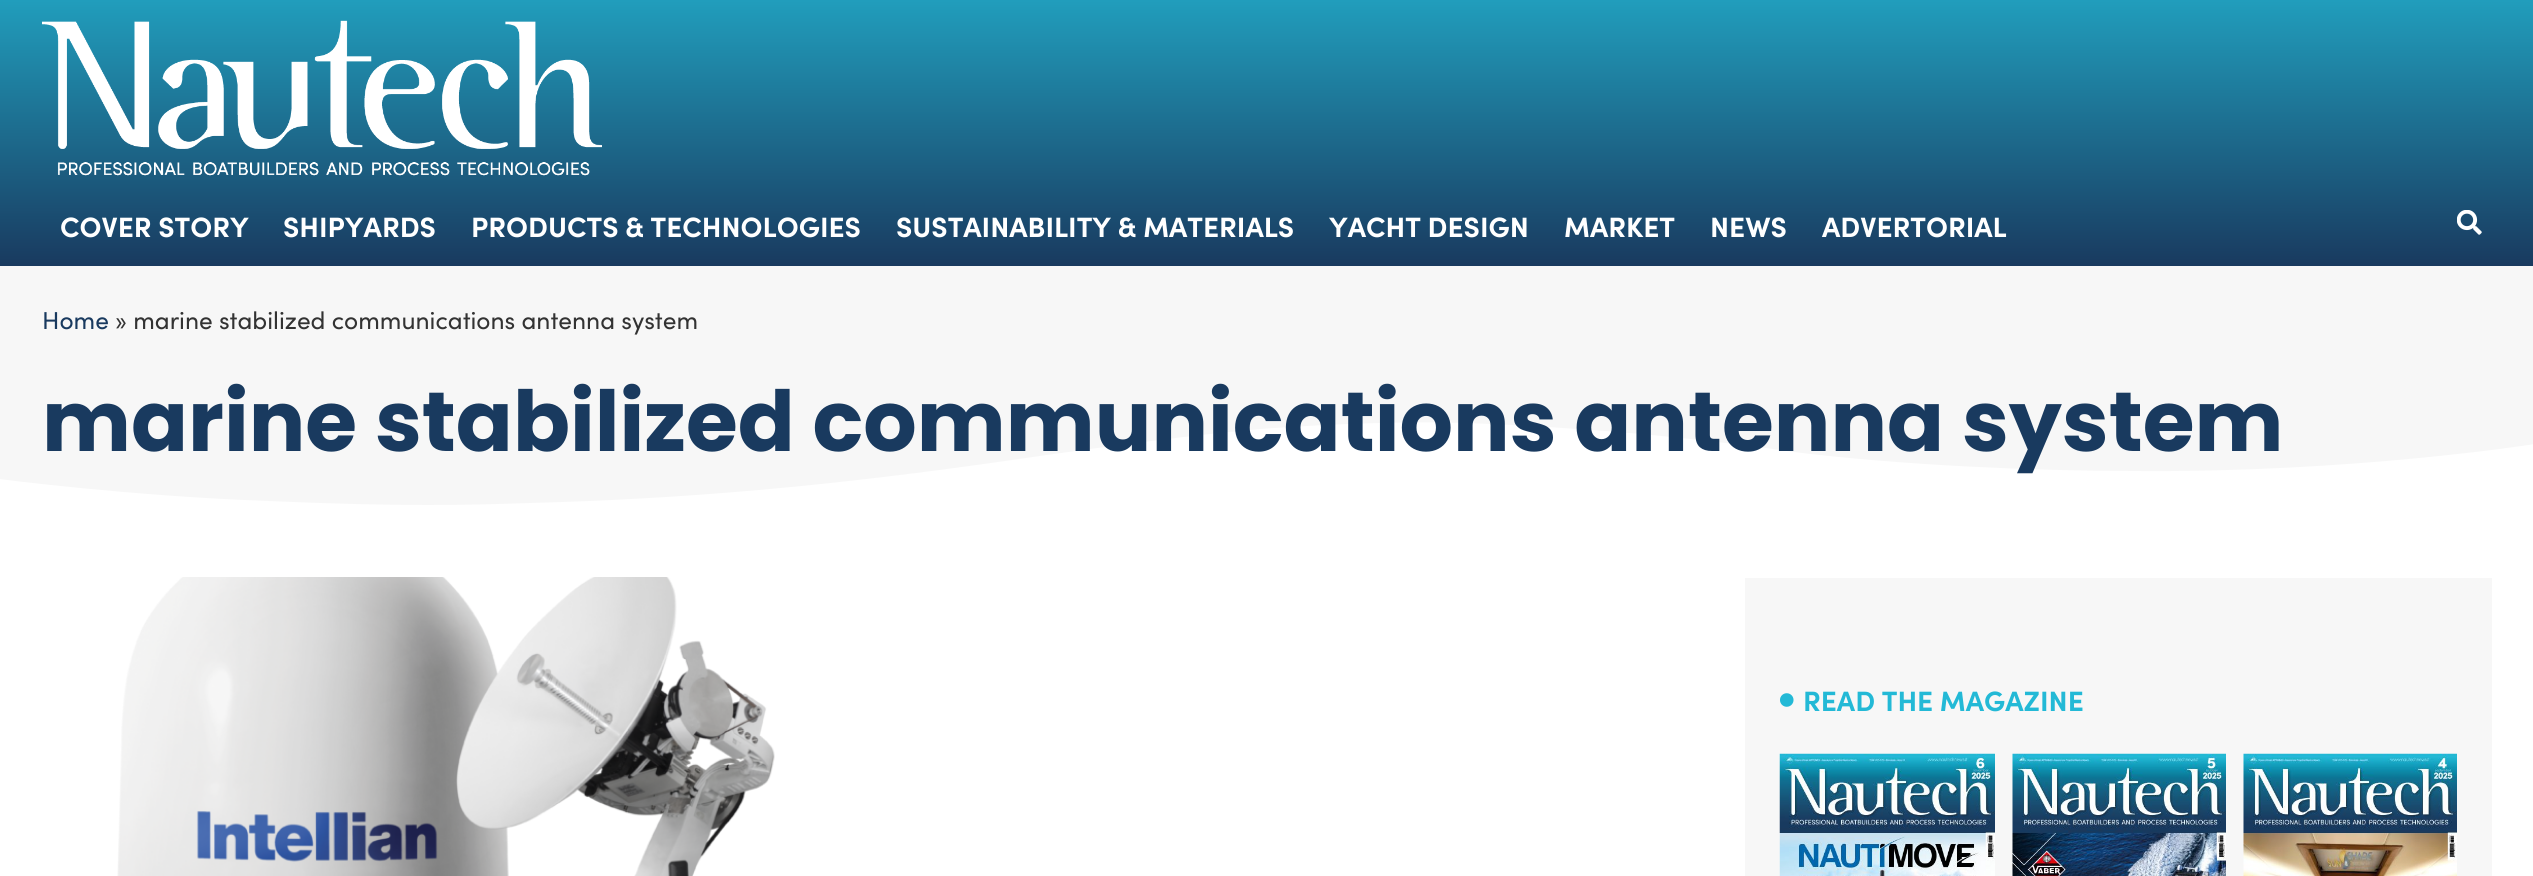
#include <cairo.h>
#include <math.h>
#include <stddef.h>


static void rgb(cairo_t *cr, int r, int g, int b)
{
	cairo_set_source_rgb(cr, r / 255.0, g / 255.0, b / 255.0);
}

static void face(cairo_t *cr, const char *family, double size, int italic, int bold)
{
	cairo_select_font_face(cr, family, italic ? CAIRO_FONT_SLANT_ITALIC : CAIRO_FONT_SLANT_NORMAL,
		bold ? CAIRO_FONT_WEIGHT_BOLD : CAIRO_FONT_WEIGHT_NORMAL);
	cairo_set_font_size(cr, size);
}

static void label(cairo_t *cr, double x, double y, const char *s)
{
	cairo_move_to(cr, x, y);
	cairo_show_text(cr, s);
}

static void rect(cairo_t *cr, double x, double y, double w, double h)
{
	cairo_rectangle(cr, x, y, w, h);
	cairo_fill(cr);
}

static void image(cairo_t *cr, const char *path, double x, double y, double w, double h)
{
	cairo_surface_t *image = cairo_image_surface_create_from_png(path);
	cairo_save(cr);
	cairo_set_source_surface(cr, image, x, y);
	cairo_rectangle(cr, x, y, w, h);
	cairo_fill(cr);
	cairo_restore(cr);
	cairo_surface_destroy(image);
}

static void draw(cairo_t *cr) {
	cairo_pattern_t *gradient;
	rgb(cr, 255, 255, 255);
	cairo_paint(cr);
	gradient = cairo_pattern_create_linear(1267, -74, 1267, 266);
	cairo_pattern_add_color_stop_rgba(gradient, 0, 0.137, 0.725, 0.839, 1);
	cairo_pattern_add_color_stop_rgba(gradient, 1, 0.098, 0.227, 0.373, 1);
	cairo_set_source(cr, gradient);
	cairo_pattern_destroy(gradient);
	rect(cr, 0, 0, 2533, 266);
	image(cr, "image0.png", 42, 20, 560, 156);
	face(cr, "Sofia", 28, 0, 1);
	rgb(cr, 255, 255, 255);
	label(cr, 60, 237, "COVER STORY");
	label(cr, 283, 237, "SHIPYARDS");
	label(cr, 471, 237, "PRODUCTS & TECHNOLOGIES");
	label(cr, 896, 237, "SUSTAINABILITY & MATERIALS");
	label(cr, 1329, 237, "YACHT DESIGN");
	label(cr, 1564, 237, "MARKET");
	label(cr, 1710, 237, "NEWS");
	label(cr, 1822, 237, "ADVERTORIAL");
	image(cr, "image1.png", 2457, 210, 25, 25);
	rgb(cr, 247, 247, 247);
	rect(cr, 0, 266, 2533, 239);
	face(cr, "Sofia", 24.5, 0, 0);
	rgb(cr, 25, 58, 95);
	label(cr, 42, 329, "Home");
	rgb(cr, 51, 51, 51);
	label(cr, 115, 329, "» marine stabilized communications antenna system");
	rgb(cr, 255, 255, 255);
	cairo_new_path(cr);
	cairo_move_to(cr, 530, 503);
	cairo_curve_to(cr, 681, 499, 826, 487, 1019, 459);
	cairo_curve_to(cr, 1094, 448, 1214, 432, 1274, 428);
	cairo_curve_to(cr, 1333, 424, 1407, 421, 1465, 423);
	cairo_curve_to(cr, 1491, 424, 1522, 425, 1592, 430);
	cairo_curve_to(cr, 1661, 435, 1740, 444, 1794, 452);
	cairo_curve_to(cr, 1898, 465, 2034, 471, 2133, 471);
	cairo_curve_to(cr, 2353, 473, 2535, 444, 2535, 444);
	cairo_line_to(cr, 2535, 509);
	cairo_line_to(cr, -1, 509);
	cairo_line_to(cr, -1, 479);
	cairo_curve_to(cr, -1, 479, 129, 496, 268, 501);
	cairo_curve_to(cr, 406, 507, 470, 505, 530, 503);
	cairo_close_path(cr);
	cairo_fill(cr);
	face(cr, "Poppins", 84, 0, 1);
	rgb(cr, 25, 58, 95);
	label(cr, 42, 451, "marine stabilized communications antenna system");
	image(cr, "image2.png", 117, 577, 658, 299);
	rgb(cr, 247, 247, 247);
	rect(cr, 1745, 578, 747, 298);
	image(cr, "image3.png", 1780, 693, 14, 14);
	face(cr, "Sofia", 28, 0, 1);
	rgb(cr, 35, 185, 214);
	label(cr, 1803, 711, "READ THE MAGAZINE");
	image(cr, "image4.png", 1779, 753, 216, 123);
	image(cr, "image5.png", 2012, 753, 214, 123);
	image(cr, "image6.png", 2243, 753, 214, 123);
}

int main(void) {
	cairo_surface_t *surface = cairo_image_surface_create(CAIRO_FORMAT_RGB24, 2533, 876);
	cairo_t *cr = cairo_create(surface);
	cairo_font_options_t *options = cairo_font_options_create();
	cairo_font_options_set_hint_metrics(options, CAIRO_HINT_METRICS_OFF);
	cairo_font_options_set_hint_style(options, CAIRO_HINT_STYLE_NONE);
	cairo_set_font_options(cr, options);
	cairo_set_miter_limit(cr, 4);
	draw(cr);
	cairo_surface_write_to_png(surface, "render.png");
	cairo_font_options_destroy(options);
	cairo_destroy(cr);
	cairo_surface_destroy(surface);
	return 0;
}
